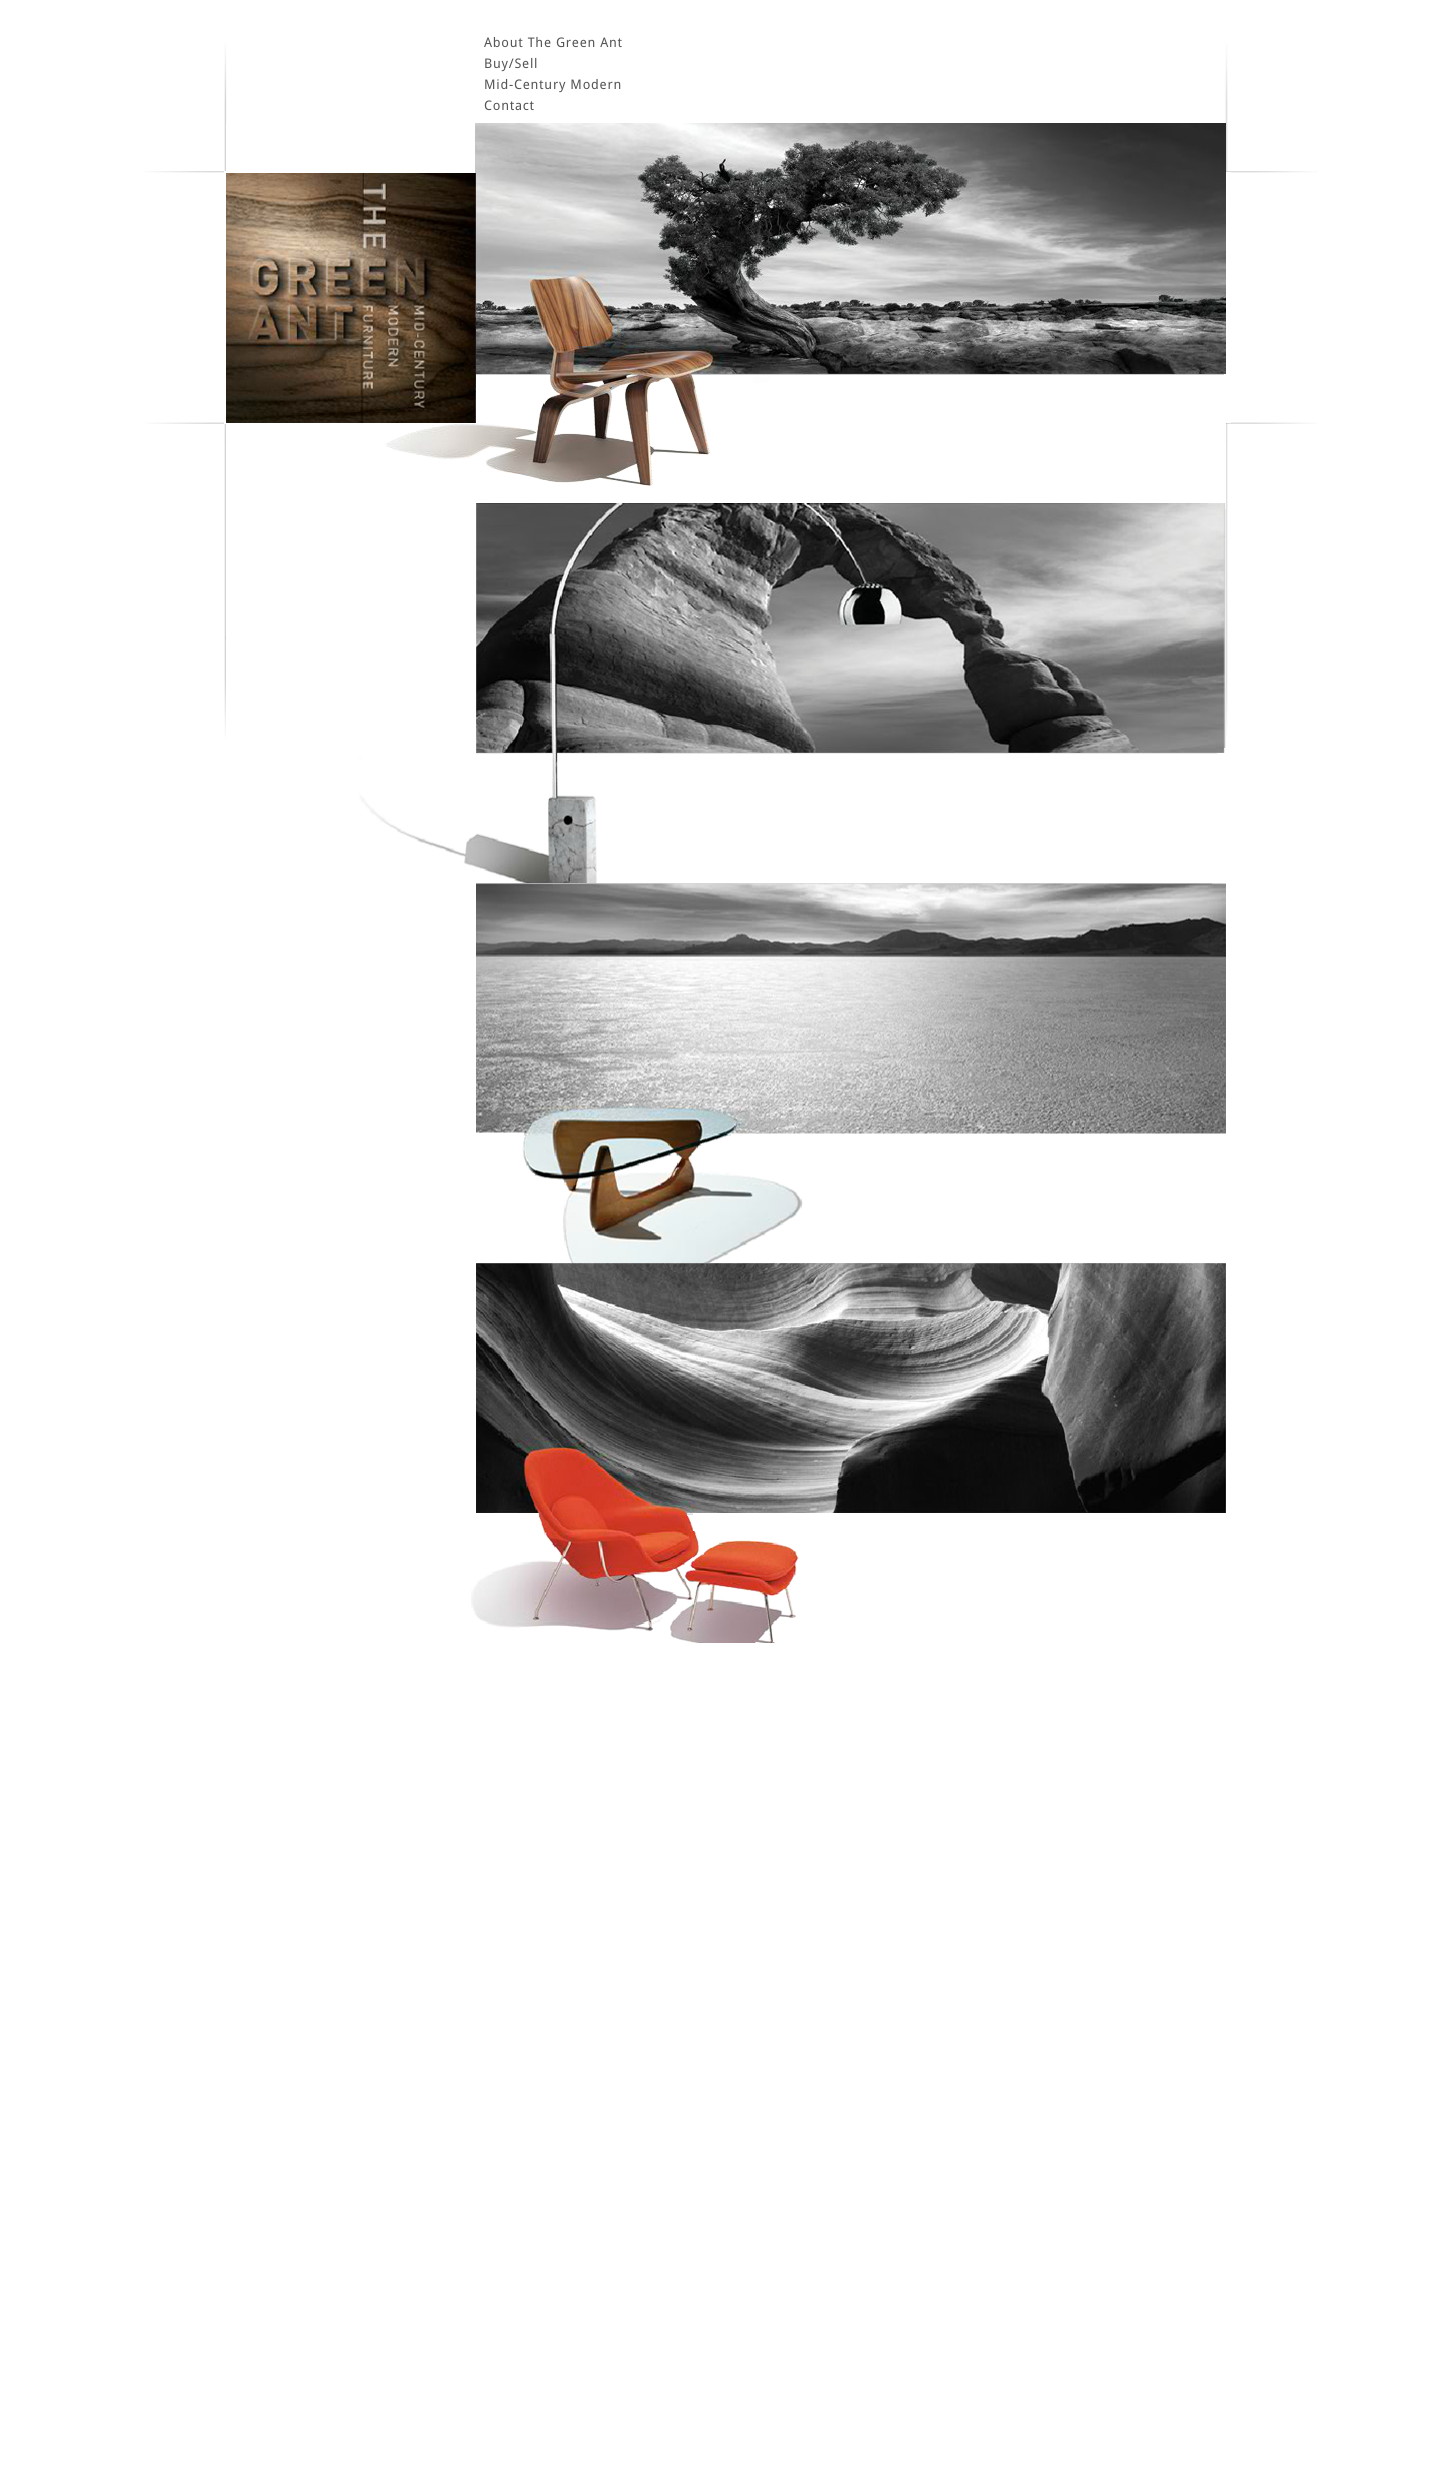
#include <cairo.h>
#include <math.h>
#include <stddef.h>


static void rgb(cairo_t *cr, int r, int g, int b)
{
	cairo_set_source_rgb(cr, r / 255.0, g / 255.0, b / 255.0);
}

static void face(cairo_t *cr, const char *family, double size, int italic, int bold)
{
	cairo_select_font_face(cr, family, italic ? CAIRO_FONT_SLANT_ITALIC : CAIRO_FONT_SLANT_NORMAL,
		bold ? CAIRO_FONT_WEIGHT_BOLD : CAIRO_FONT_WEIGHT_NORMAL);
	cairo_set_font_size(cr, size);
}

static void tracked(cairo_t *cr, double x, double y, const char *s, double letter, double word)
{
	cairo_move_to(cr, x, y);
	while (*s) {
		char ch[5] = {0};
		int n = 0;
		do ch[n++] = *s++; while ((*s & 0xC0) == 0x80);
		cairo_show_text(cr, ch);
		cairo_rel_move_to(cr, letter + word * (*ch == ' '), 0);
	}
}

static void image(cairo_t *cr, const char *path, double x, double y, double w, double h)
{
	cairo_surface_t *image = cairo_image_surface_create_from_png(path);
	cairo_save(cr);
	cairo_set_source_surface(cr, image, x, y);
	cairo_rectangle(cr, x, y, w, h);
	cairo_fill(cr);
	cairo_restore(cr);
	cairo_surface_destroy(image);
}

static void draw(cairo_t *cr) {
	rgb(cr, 255, 255, 255);
	cairo_paint(cr);
	image(cr, "image0.png", 145, 44, 1172, 693);
	face(cr, "Droid Sans", 13.25, 0, 0);
	rgb(cr, 85, 85, 85);
	tracked(cr, 484, 47, "About The Green Ant", 0.75, 0);
	tracked(cr, 484, 68, "Buy/Sell", 0.75, 0);
	tracked(cr, 484, 89, "Mid-Century Modern", 0.75, 0);
	tracked(cr, 484, 110, "Contact", 0.75, 0);
	image(cr, "image1.png", 226, 123, 1000, 380);
	image(cr, "image2.png", 226, 503, 1000, 380);
	image(cr, "image3.png", 476, 883, 750, 380);
	image(cr, "image4.png", 471, 1263, 755, 380);
	image(cr, "image5.png", 226, 173, 250, 250);
}

int main(void) {
	cairo_surface_t *surface = cairo_image_surface_create(CAIRO_FORMAT_RGB24, 1452, 2487);
	cairo_t *cr = cairo_create(surface);
	cairo_font_options_t *options = cairo_font_options_create();
	cairo_font_options_set_hint_metrics(options, CAIRO_HINT_METRICS_OFF);
	cairo_font_options_set_hint_style(options, CAIRO_HINT_STYLE_NONE);
	cairo_set_font_options(cr, options);
	cairo_set_miter_limit(cr, 4);
	draw(cr);
	cairo_surface_write_to_png(surface, "render.png");
	cairo_font_options_destroy(options);
	cairo_destroy(cr);
	cairo_surface_destroy(surface);
	return 0;
}
